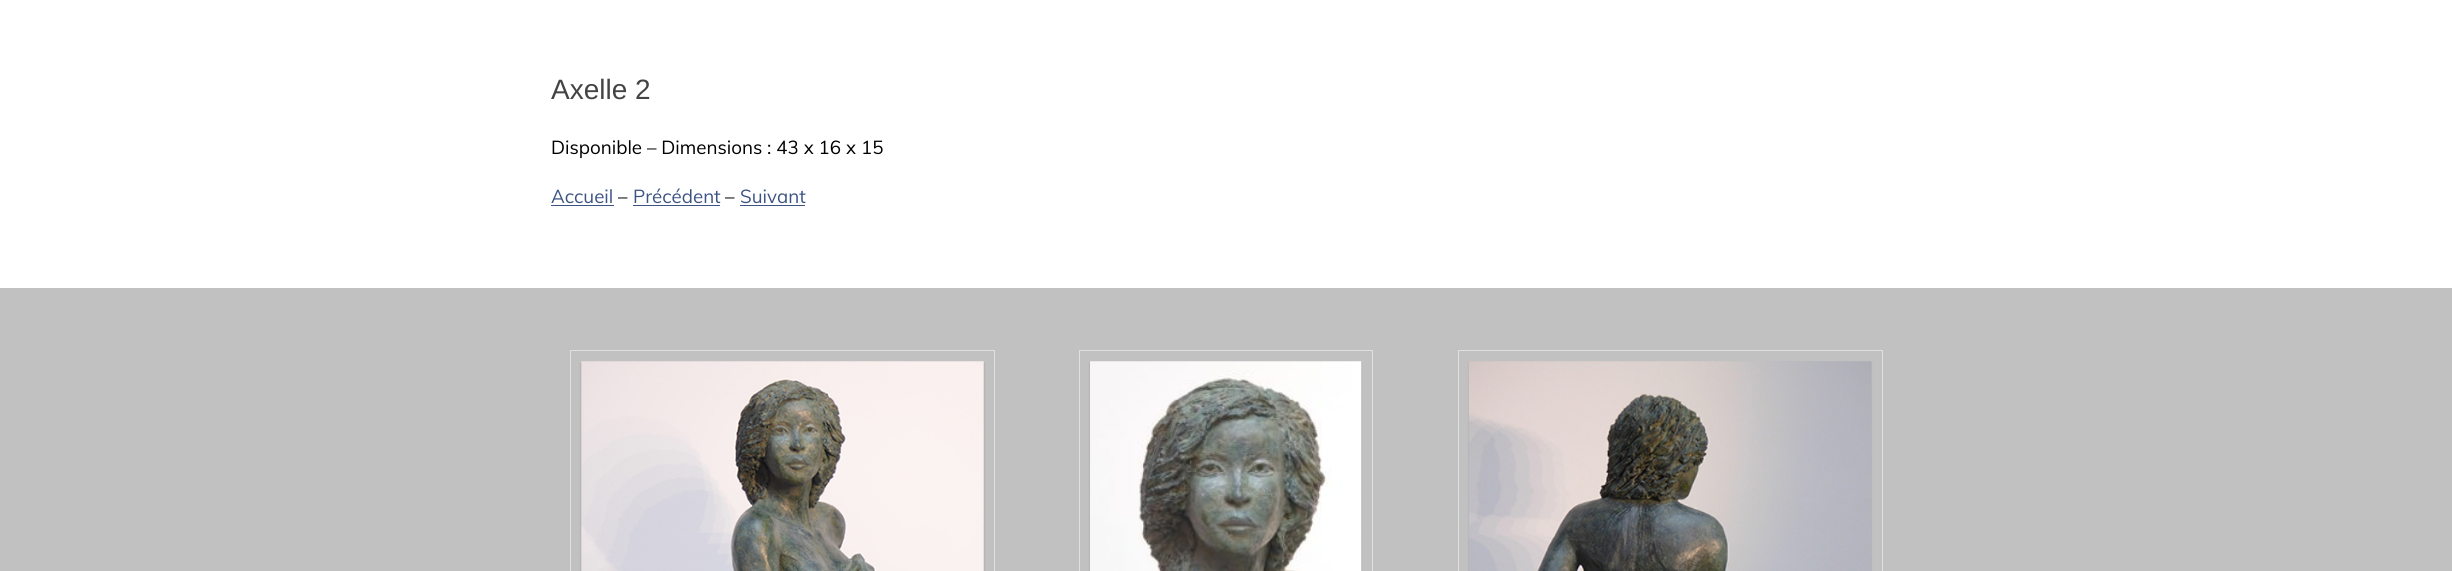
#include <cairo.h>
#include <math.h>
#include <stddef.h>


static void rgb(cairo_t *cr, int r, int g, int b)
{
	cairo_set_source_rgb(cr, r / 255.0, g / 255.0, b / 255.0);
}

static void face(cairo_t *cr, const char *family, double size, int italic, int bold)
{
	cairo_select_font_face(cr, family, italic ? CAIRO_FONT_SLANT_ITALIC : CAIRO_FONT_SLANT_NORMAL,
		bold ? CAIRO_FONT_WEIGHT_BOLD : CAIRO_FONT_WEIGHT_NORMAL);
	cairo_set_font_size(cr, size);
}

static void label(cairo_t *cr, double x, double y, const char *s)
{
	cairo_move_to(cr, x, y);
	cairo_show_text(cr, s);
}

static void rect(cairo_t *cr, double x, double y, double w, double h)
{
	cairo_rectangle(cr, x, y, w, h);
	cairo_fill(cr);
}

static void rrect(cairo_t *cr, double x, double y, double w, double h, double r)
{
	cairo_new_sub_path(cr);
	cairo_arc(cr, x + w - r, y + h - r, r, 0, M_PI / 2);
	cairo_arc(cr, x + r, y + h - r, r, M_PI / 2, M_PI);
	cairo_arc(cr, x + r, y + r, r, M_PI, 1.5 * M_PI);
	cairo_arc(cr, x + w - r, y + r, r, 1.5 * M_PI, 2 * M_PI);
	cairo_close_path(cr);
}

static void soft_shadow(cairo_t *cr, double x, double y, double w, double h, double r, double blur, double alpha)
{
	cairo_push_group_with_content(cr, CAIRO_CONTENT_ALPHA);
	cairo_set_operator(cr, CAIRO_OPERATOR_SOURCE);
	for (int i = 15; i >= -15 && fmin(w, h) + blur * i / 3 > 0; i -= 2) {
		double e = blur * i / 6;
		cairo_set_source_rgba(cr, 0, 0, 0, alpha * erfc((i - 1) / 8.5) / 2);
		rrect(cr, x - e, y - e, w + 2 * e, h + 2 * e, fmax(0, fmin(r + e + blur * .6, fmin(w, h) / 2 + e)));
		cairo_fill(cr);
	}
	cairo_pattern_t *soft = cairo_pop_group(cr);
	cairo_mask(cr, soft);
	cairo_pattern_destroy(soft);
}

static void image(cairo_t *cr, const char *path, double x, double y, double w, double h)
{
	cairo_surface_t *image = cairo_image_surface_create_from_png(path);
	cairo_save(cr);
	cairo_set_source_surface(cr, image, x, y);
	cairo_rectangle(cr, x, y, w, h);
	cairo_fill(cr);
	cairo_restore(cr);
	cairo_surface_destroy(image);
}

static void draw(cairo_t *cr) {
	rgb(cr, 255, 255, 255);
	cairo_paint(cr);
	face(cr, "Liberation Sans", 28, 0, 0);
	rgb(cr, 68, 68, 68);
	label(cr, 551, 99, "Axelle 2");
	face(cr, "Muli", 18.75, 0, 0);
	rgb(cr, 0, 0, 0);
	label(cr, 551, 154, "Disponible – Dimensions : 43 x 16 x 15");
	rgb(cr, 60, 83, 131);
	label(cr, 551, 203, "Accueil");
	rect(cr, 551, 205, 63, 1);
	rgb(cr, 0, 0, 0);
	label(cr, 618, 203, "–");
	rgb(cr, 60, 83, 131);
	label(cr, 633, 203, "Précédent");
	rect(cr, 633, 205, 87, 1);
	rgb(cr, 0, 0, 0);
	label(cr, 725, 203, "–");
	rgb(cr, 60, 83, 131);
	label(cr, 740, 203, "Suivant");
	rect(cr, 740, 205, 65, 1);
	rgb(cr, 193, 193, 193);
	rect(cr, 0, 288, 2452, 283);
	cairo_rectangle(cr, 570.5, 350.5, 424, 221);
	rgb(cr, 224, 224, 224);
	cairo_set_line_width(cr, 1);
	cairo_stroke(cr);
	rgb(cr, 0, 0, 0);
	soft_shadow(cr, 581, 363, 403, 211, 0, 1, 0.18);
	image(cr, "image0.png", 581, 361, 403, 210);
	cairo_rectangle(cr, 1079.5, 350.5, 293, 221);
	rgb(cr, 224, 224, 224);
	cairo_stroke(cr);
	rgb(cr, 0, 0, 0);
	soft_shadow(cr, 1090, 363, 271, 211, 0, 1, 0.18);
	image(cr, "image1.png", 1090, 361, 272, 210);
	cairo_rectangle(cr, 1458.5, 350.5, 424, 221);
	rgb(cr, 224, 224, 224);
	cairo_stroke(cr);
	rgb(cr, 0, 0, 0);
	soft_shadow(cr, 1469, 363, 402, 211, 0, 1, 0.18);
	image(cr, "image2.png", 1468, 361, 404, 210);
}

int main(void) {
	cairo_surface_t *surface = cairo_image_surface_create(CAIRO_FORMAT_RGB24, 2452, 571);
	cairo_t *cr = cairo_create(surface);
	cairo_font_options_t *options = cairo_font_options_create();
	cairo_font_options_set_hint_metrics(options, CAIRO_HINT_METRICS_OFF);
	cairo_font_options_set_hint_style(options, CAIRO_HINT_STYLE_NONE);
	cairo_set_font_options(cr, options);
	cairo_set_miter_limit(cr, 4);
	draw(cr);
	cairo_surface_write_to_png(surface, "render.png");
	cairo_font_options_destroy(options);
	cairo_destroy(cr);
	cairo_surface_destroy(surface);
	return 0;
}
